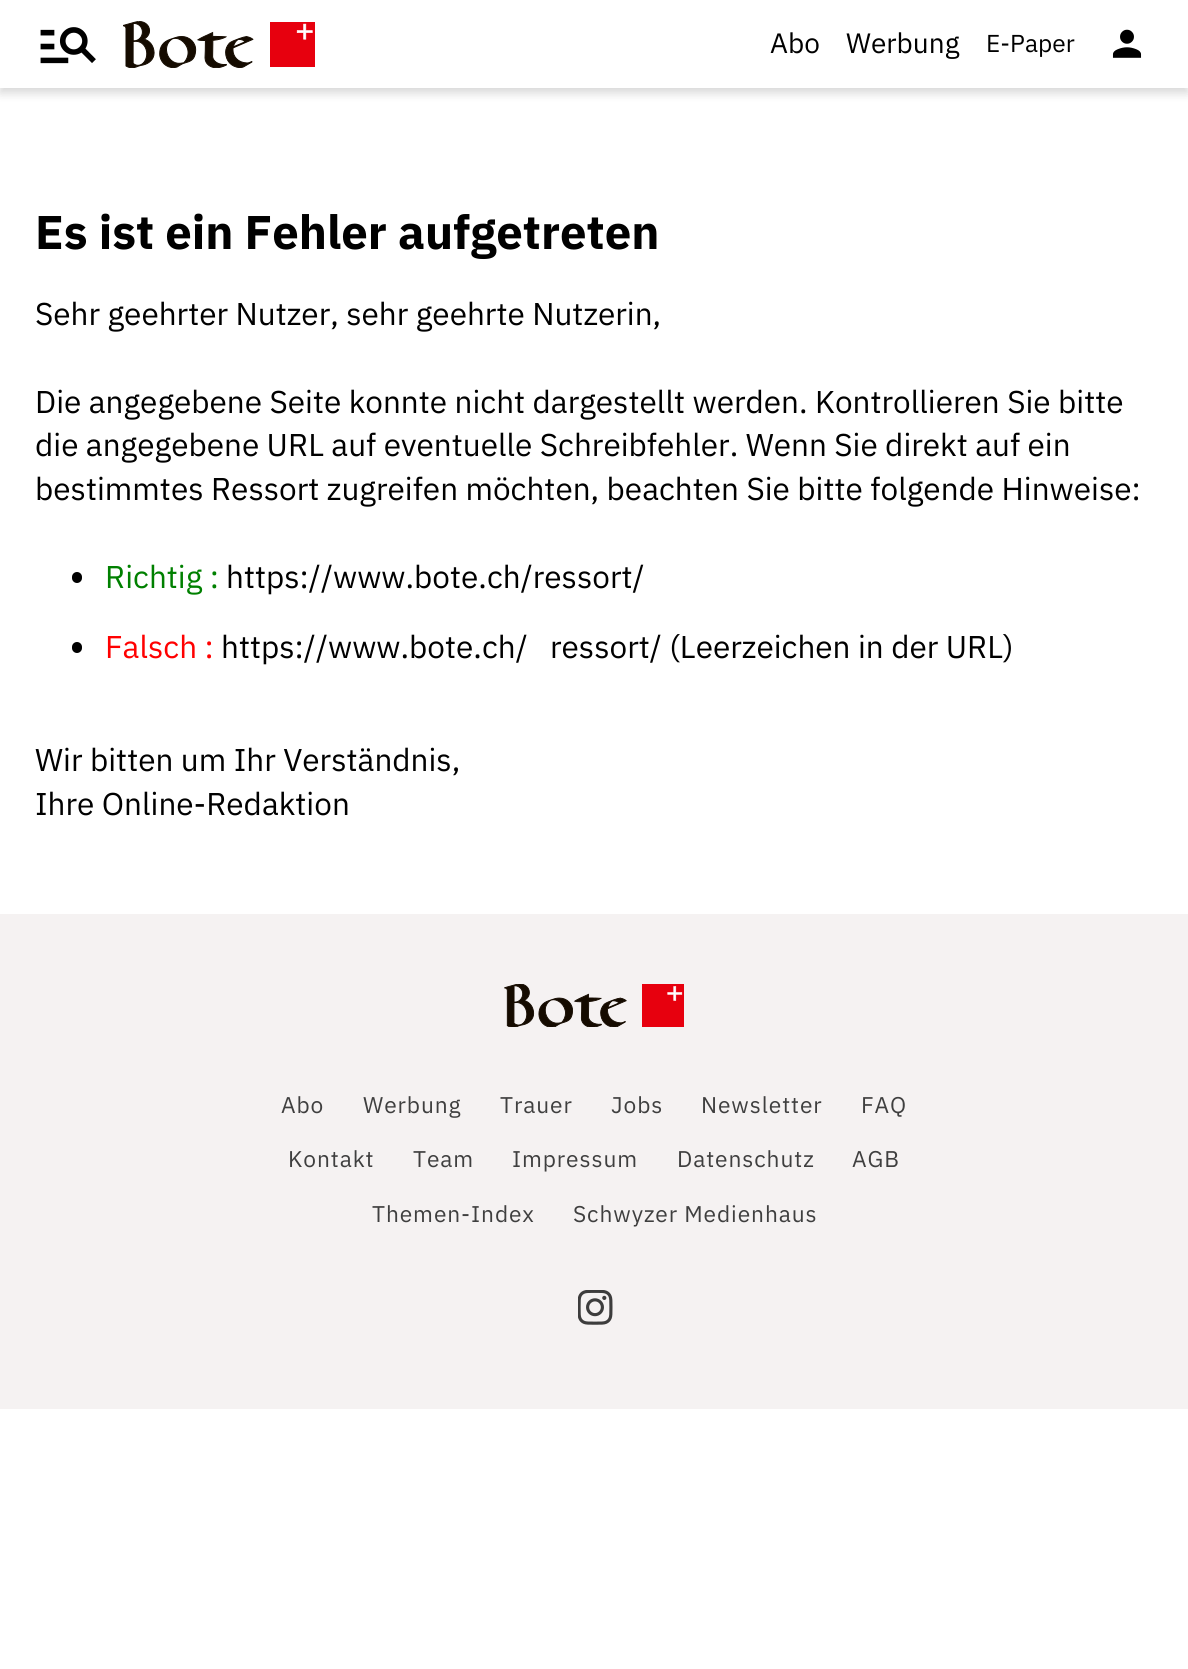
#include <cairo.h>
#include <math.h>
#include <stddef.h>


static void rgb(cairo_t *cr, int r, int g, int b)
{
	cairo_set_source_rgb(cr, r / 255.0, g / 255.0, b / 255.0);
}

static void face(cairo_t *cr, const char *family, double size, int italic, int bold)
{
	cairo_select_font_face(cr, family, italic ? CAIRO_FONT_SLANT_ITALIC : CAIRO_FONT_SLANT_NORMAL,
		bold ? CAIRO_FONT_WEIGHT_BOLD : CAIRO_FONT_WEIGHT_NORMAL);
	cairo_set_font_size(cr, size);
}

static void label(cairo_t *cr, double x, double y, const char *s)
{
	cairo_move_to(cr, x, y);
	cairo_show_text(cr, s);
}

static void tracked(cairo_t *cr, double x, double y, const char *s, double letter, double word)
{
	cairo_move_to(cr, x, y);
	while (*s) {
		char ch[5] = {0};
		int n = 0;
		do ch[n++] = *s++; while ((*s & 0xC0) == 0x80);
		cairo_show_text(cr, ch);
		cairo_rel_move_to(cr, letter + word * (*ch == ' '), 0);
	}
}

static void rect(cairo_t *cr, double x, double y, double w, double h)
{
	cairo_rectangle(cr, x, y, w, h);
	cairo_fill(cr);
}

static void rrect(cairo_t *cr, double x, double y, double w, double h, double r)
{
	cairo_new_sub_path(cr);
	cairo_arc(cr, x + w - r, y + h - r, r, 0, M_PI / 2);
	cairo_arc(cr, x + r, y + h - r, r, M_PI / 2, M_PI);
	cairo_arc(cr, x + r, y + r, r, M_PI, 1.5 * M_PI);
	cairo_arc(cr, x + w - r, y + r, r, 1.5 * M_PI, 2 * M_PI);
	cairo_close_path(cr);
}

static void soft_shadow(cairo_t *cr, double x, double y, double w, double h, double r, double blur, double alpha)
{
	cairo_push_group_with_content(cr, CAIRO_CONTENT_ALPHA);
	cairo_set_operator(cr, CAIRO_OPERATOR_SOURCE);
	for (int i = 15; i >= -15 && fmin(w, h) + blur * i / 3 > 0; i -= 2) {
		double e = blur * i / 6;
		cairo_set_source_rgba(cr, 0, 0, 0, alpha * erfc((i - 1) / 8.5) / 2);
		rrect(cr, x - e, y - e, w + 2 * e, h + 2 * e, fmax(0, fmin(r + e + blur * .6, fmin(w, h) / 2 + e)));
		cairo_fill(cr);
	}
	cairo_pattern_t *soft = cairo_pop_group(cr);
	cairo_mask(cr, soft);
	cairo_pattern_destroy(soft);
}

static void image(cairo_t *cr, const char *path, double x, double y, double w, double h)
{
	cairo_surface_t *image = cairo_image_surface_create_from_png(path);
	cairo_save(cr);
	cairo_set_source_surface(cr, image, x, y);
	cairo_rectangle(cr, x, y, w, h);
	cairo_fill(cr);
	cairo_restore(cr);
	cairo_surface_destroy(image);
}

static void draw(cairo_t *cr) {
	rgb(cr, 255, 255, 255);
	cairo_paint(cr);
	rgb(cr, 0, 0, 0);
	soft_shadow(cr, 0, 5, 1188, 88, 0, 5, 0.16);
	rgb(cr, 255, 255, 255);
	rect(cr, 0, 0, 1188, 88);
	image(cr, "image0.png", 40, 27, 56, 37);
	image(cr, "image1.png", 123, 21, 192, 47);
	face(cr, "IBM Plex Sans", 28, 0, 0);
	rgb(cr, 0, 0, 0);
	label(cr, 770, 53, "Abo");
	label(cr, 846, 53, "Werbung");
	face(cr, "IBM Plex Sans", 24.5, 0, 0);
	label(cr, 986, 52, "E-Paper");
	image(cr, "image2.png", 1112, 29, 30, 29);
	face(cr, "IBM Plex Sans", 47.25, 0, 1);
	label(cr, 35, 249, "Es ist ein Fehler aufgetreten");
	face(cr, "IBM Plex Sans", 31.5, 0, 0);
	label(cr, 35, 325, "Sehr geehrter Nutzer, sehr geehrte Nutzerin,");
	label(cr, 35, 413, "Die angegebene Seite konnte nicht dargestellt werden. Kontrollieren Sie bitte");
	label(cr, 35, 456, "die angegebene URL auf eventuelle Schreibfehler. Wenn Sie direkt auf ein");
	label(cr, 35, 500, "bestimmtes Ressort zugreifen möchten, beachten Sie bitte folgende Hinweise:");
	rrect(cr, 72, 572, 10, 11, 5);
	cairo_fill(cr);
	rgb(cr, 0, 128, 0);
	label(cr, 105, 588, "Richtig :");
	rgb(cr, 0, 0, 0);
	label(cr, 226, 588, "https://www.bote.ch/ressort/");
	rrect(cr, 72, 642, 10, 11, 5);
	cairo_fill(cr);
	rgb(cr, 255, 0, 0);
	label(cr, 105, 658, "Falsch :");
	rgb(cr, 0, 0, 0);
	label(cr, 221, 658, "https://www.bote.ch/   ressort/ (Leerzeichen in der URL)");
	label(cr, 35, 771, "Wir bitten um Ihr Verständnis,");
	label(cr, 35, 815, "Ihre Online-Redaktion");
	rgb(cr, 245, 242, 242);
	rect(cr, 0, 914, 1188, 495);
	image(cr, "image3.png", 504, 984, 180, 43);
	face(cr, "IBM Plex Sans", 22.75, 0, 0);
	rgb(cr, 63, 63, 63);
	tracked(cr, 281, 1113, "Abo", 0.9, 0);
	tracked(cr, 363, 1113, "Werbung", 0.9, 0);
	tracked(cr, 500, 1113, "Trauer", 0.9, 0);
	tracked(cr, 611, 1113, "Jobs", 0.9, 0);
	tracked(cr, 701, 1113, "Newsletter", 0.9, 0);
	tracked(cr, 861, 1113, "FAQ", 0.9, 0);
	tracked(cr, 288, 1167, "Kontakt", 0.9, 0);
	tracked(cr, 413, 1167, "Team", 0.9, 0);
	tracked(cr, 512, 1167, "Impressum", 0.9, 0);
	tracked(cr, 677, 1167, "Datenschutz", 0.9, 0);
	tracked(cr, 852, 1167, "AGB", 0.9, 0);
	tracked(cr, 372, 1222, "Themen-Index", 0.9, 0);
	tracked(cr, 573, 1222, "Schwyzer Medienhaus", 0.9, 0);
	image(cr, "image4.png", 578, 1290, 35, 35);
}

int main(void) {
	cairo_surface_t *surface = cairo_image_surface_create(CAIRO_FORMAT_RGB24, 1188, 1669);
	cairo_t *cr = cairo_create(surface);
	cairo_font_options_t *options = cairo_font_options_create();
	cairo_font_options_set_hint_metrics(options, CAIRO_HINT_METRICS_OFF);
	cairo_font_options_set_hint_style(options, CAIRO_HINT_STYLE_NONE);
	cairo_set_font_options(cr, options);
	cairo_set_miter_limit(cr, 4);
	draw(cr);
	cairo_surface_write_to_png(surface, "render.png");
	cairo_font_options_destroy(options);
	cairo_destroy(cr);
	cairo_surface_destroy(surface);
	return 0;
}
